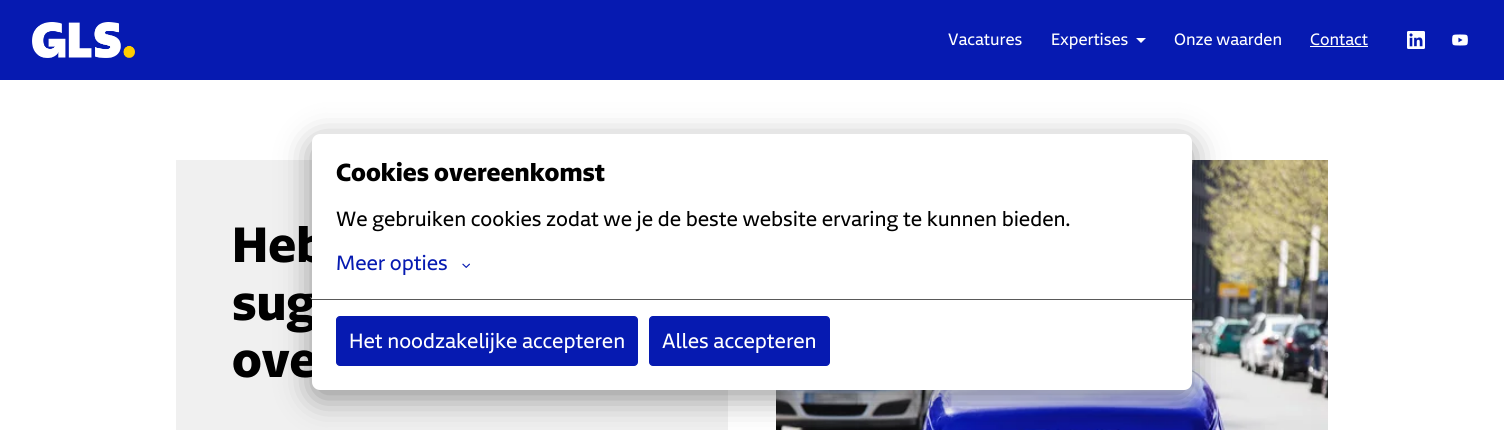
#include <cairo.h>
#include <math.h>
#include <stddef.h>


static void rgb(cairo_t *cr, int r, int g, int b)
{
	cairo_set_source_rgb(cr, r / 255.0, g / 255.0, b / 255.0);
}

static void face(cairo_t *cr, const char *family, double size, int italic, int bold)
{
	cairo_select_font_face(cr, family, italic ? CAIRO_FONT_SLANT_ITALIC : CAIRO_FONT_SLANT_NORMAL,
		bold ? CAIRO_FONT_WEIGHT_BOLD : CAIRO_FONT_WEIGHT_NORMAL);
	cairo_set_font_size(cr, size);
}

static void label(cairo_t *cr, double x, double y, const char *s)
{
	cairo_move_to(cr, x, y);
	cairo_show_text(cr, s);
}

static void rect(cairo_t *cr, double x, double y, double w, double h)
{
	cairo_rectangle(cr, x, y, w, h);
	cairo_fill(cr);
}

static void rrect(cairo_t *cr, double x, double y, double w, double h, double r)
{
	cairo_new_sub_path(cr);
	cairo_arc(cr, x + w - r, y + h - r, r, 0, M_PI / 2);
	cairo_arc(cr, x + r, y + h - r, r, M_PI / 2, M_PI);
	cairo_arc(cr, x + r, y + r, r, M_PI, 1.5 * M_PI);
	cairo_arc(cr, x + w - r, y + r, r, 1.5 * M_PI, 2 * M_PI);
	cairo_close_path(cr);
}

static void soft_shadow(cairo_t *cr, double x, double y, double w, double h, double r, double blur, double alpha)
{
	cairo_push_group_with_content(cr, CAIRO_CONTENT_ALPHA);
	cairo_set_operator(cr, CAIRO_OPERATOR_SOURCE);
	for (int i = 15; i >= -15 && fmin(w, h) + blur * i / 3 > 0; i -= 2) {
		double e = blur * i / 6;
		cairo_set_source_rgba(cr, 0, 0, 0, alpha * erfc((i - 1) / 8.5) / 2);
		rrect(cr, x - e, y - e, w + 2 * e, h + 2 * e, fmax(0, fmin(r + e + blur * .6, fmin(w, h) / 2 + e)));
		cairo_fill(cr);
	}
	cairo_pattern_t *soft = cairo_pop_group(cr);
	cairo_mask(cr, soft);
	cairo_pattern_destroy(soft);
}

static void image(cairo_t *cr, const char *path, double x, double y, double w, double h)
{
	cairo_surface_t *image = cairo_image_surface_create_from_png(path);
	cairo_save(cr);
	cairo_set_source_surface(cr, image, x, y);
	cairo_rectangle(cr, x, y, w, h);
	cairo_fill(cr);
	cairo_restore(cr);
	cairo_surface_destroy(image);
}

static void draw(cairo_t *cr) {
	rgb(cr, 255, 255, 255);
	cairo_paint(cr);
	rgb(cr, 6, 26, 177);
	rect(cr, 0, 0, 1504, 80);
	image(cr, "image0.png", 32, 22, 103, 36);
	face(cr, "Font", 16, 0, 0);
	rgb(cr, 255, 255, 255);
	label(cr, 948, 45, "Vacatures");
	label(cr, 1051, 45, "Expertises");
	cairo_new_path(cr);
	cairo_move_to(cr, 1136, 38);
	cairo_line_to(cr, 1141, 43);
	cairo_line_to(cr, 1146, 38);
	cairo_close_path(cr);
	cairo_fill(cr);
	label(cr, 1174, 45, "Onze waarden");
	label(cr, 1310, 45, "Contact");
	rect(cr, 1310, 46, 58, 1);
	image(cr, "image1.png", 1407, 31, 18, 18);
	image(cr, "image2.png", 1452, 34, 16, 12);
	rgb(cr, 240, 240, 240);
	rect(cr, 176, 160, 552, 270);
	face(cr, "Font", 48, 0, 1);
	rgb(cr, 0, 0, 0);
	label(cr, 232, 262, "Heb");
	label(cr, 232, 320, "sug");
	label(cr, 232, 377, "ove");
	image(cr, "image3.png", 776, 160, 552, 270);
	rgb(cr, 0, 0, 0);
	soft_shadow(cr, 312, 142, 880, 256, 8, 16, 0.4);
	rgb(cr, 255, 255, 255);
	rrect(cr, 312, 134, 880, 256, 8);
	cairo_fill(cr);
	face(cr, "Font", 24, 0, 1);
	rgb(cr, 0, 0, 0);
	label(cr, 336, 181, "Cookies overeenkomst");
	face(cr, "Font", 20, 0, 0);
	label(cr, 336, 226, "We gebruiken cookies zodat we je de beste website ervaring te kunnen bieden.");
	rgb(cr, 6, 26, 177);
	label(cr, 336, 270, "Meer opties");
	image(cr, "image4.png", 462, 263, 8, 5);
	rgb(cr, 89, 89, 89);
	rect(cr, 312, 299, 880, 1);
	rgb(cr, 6, 26, 177);
	rrect(cr, 336.5, 316.5, 301, 49, 3.5);
	cairo_fill_preserve(cr);
	cairo_set_line_width(cr, 1);
	cairo_stroke(cr);
	rgb(cr, 255, 255, 255);
	label(cr, 349, 348, "Het noodzakelijke accepteren");
	rgb(cr, 6, 26, 177);
	rrect(cr, 649.5, 316.5, 180, 49, 3.5);
	cairo_fill_preserve(cr);
	cairo_stroke(cr);
	rgb(cr, 255, 255, 255);
	label(cr, 662, 348, "Alles accepteren");
}

int main(void) {
	cairo_surface_t *surface = cairo_image_surface_create(CAIRO_FORMAT_RGB24, 1504, 430);
	cairo_t *cr = cairo_create(surface);
	cairo_font_options_t *options = cairo_font_options_create();
	cairo_font_options_set_hint_metrics(options, CAIRO_HINT_METRICS_OFF);
	cairo_font_options_set_hint_style(options, CAIRO_HINT_STYLE_NONE);
	cairo_set_font_options(cr, options);
	cairo_set_miter_limit(cr, 4);
	draw(cr);
	cairo_surface_write_to_png(surface, "render.png");
	cairo_font_options_destroy(options);
	cairo_destroy(cr);
	cairo_surface_destroy(surface);
	return 0;
}
